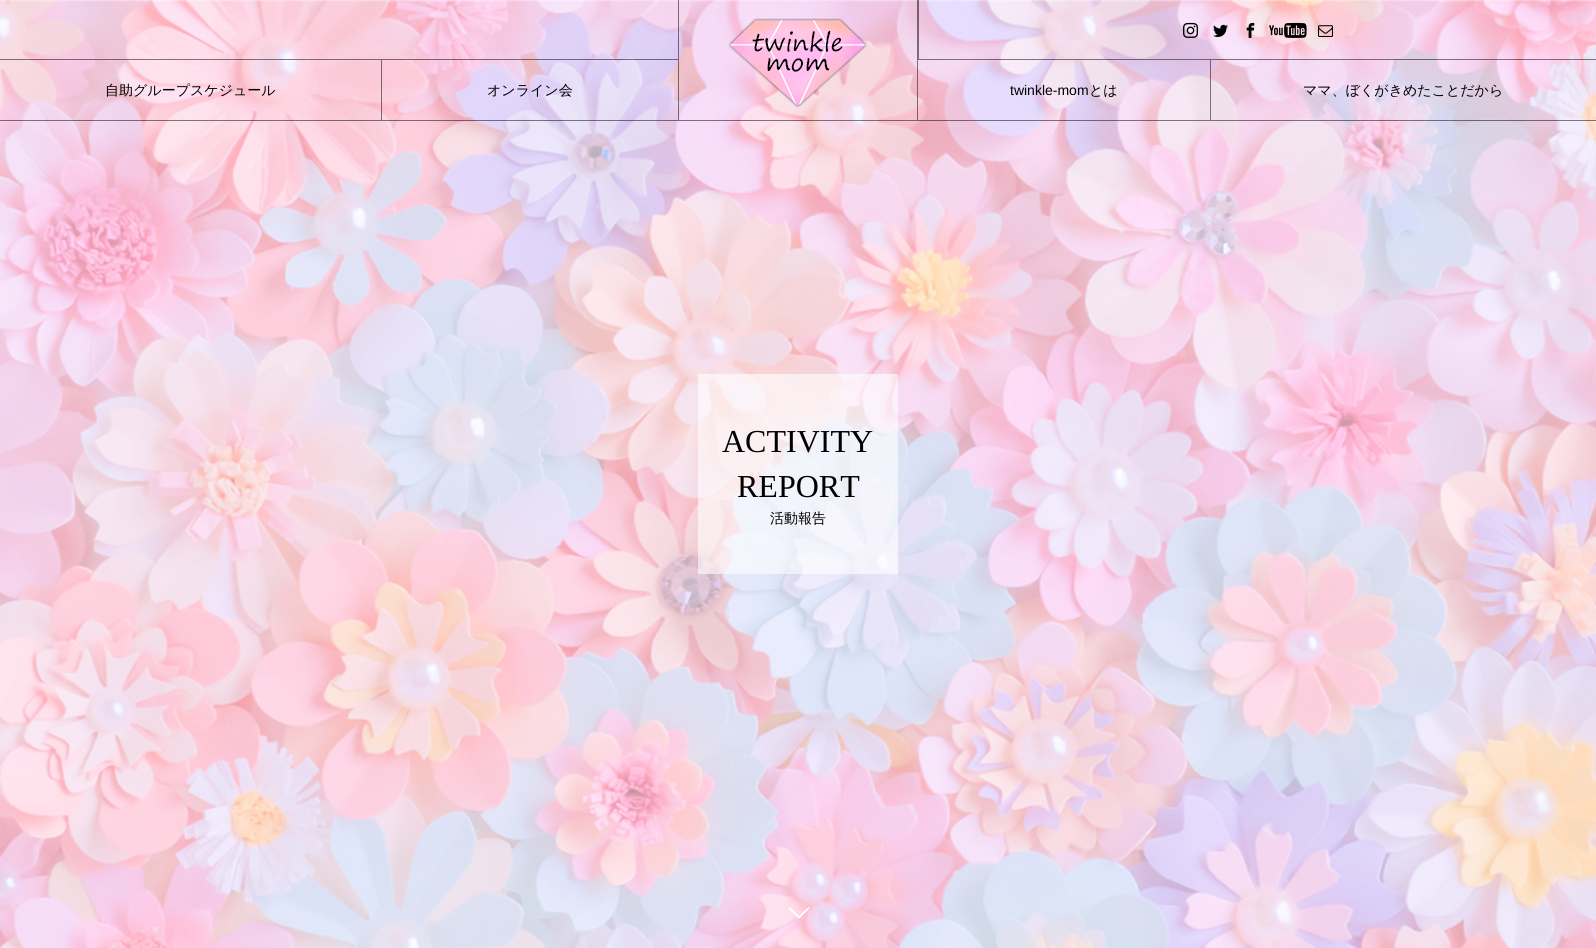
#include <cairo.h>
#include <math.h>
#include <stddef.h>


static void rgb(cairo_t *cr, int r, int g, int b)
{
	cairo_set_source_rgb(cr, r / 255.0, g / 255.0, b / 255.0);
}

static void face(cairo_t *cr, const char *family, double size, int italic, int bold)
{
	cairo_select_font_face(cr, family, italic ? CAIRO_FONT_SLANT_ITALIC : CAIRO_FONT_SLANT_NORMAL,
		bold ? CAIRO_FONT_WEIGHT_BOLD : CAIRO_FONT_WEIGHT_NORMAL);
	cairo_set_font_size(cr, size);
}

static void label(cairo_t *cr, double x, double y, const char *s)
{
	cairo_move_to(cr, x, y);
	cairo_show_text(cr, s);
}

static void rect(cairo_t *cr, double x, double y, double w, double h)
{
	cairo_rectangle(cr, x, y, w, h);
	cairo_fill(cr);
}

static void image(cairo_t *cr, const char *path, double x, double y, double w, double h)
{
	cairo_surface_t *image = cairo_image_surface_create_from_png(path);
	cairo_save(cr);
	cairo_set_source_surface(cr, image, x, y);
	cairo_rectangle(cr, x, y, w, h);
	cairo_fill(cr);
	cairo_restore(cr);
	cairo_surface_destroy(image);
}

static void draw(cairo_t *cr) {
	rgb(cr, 255, 255, 255);
	cairo_paint(cr);
	image(cr, "image6.png", 0, 0, 1596, 948);
	cairo_set_source_rgba(cr, 0, 0, 0, 0.5);
	rect(cr, 0, 120, 1596, 1);
	rect(cr, 917, 0, 1, 120);
	rect(cr, 678, 0, 1, 120);
	image(cr, "image0.png", 728, 18, 139, 90);
	rect(cr, 918, 0, 1, 59);
	image(cr, "image1.png", 1183, 22, 15, 16);
	image(cr, "image2.png", 1213, 24, 15, 13);
	image(cr, "image3.png", 1246, 22, 9, 16);
	image(cr, "image4.png", 1269, 22, 38, 16);
	image(cr, "image5.png", 1318, 25, 15, 12);
	rect(cr, 0, 59, 381, 1);
	face(cr, "WenQuanYi Zen Hei Medium", 14, 0, 0);
	rgb(cr, 0, 0, 0);
	label(cr, 105, 95, "自助グループスケジュール");
	cairo_set_source_rgba(cr, 0, 0, 0, 0.5);
	cairo_new_path(cr);
	cairo_move_to(cr, 381, 59);
	cairo_line_to(cr, 678, 59);
	cairo_line_to(cr, 678, 60);
	cairo_line_to(cr, 382, 60);
	cairo_close_path(cr);
	cairo_fill(cr);
	cairo_new_path(cr);
	cairo_move_to(cr, 381, 120);
	cairo_line_to(cr, 381, 59);
	cairo_line_to(cr, 382, 60);
	cairo_line_to(cr, 382, 120);
	cairo_close_path(cr);
	cairo_fill(cr);
	rgb(cr, 0, 0, 0);
	label(cr, 487, 95, "オンライン会");
	cairo_set_source_rgba(cr, 0, 0, 0, 0.5);
	rect(cr, 918, 59, 292, 1);
	face(cr, "Liberation Sans", 14, 0, 0);
	rgb(cr, 0, 0, 0);
	label(cr, 1010, 95, "twinkle-mom");
	face(cr, "WenQuanYi Zen Hei Medium", 14, 0, 0);
	label(cr, 1089, 95, "とは");
	cairo_set_source_rgba(cr, 0, 0, 0, 0.5);
	cairo_new_path(cr);
	cairo_move_to(cr, 1210, 59);
	cairo_line_to(cr, 1596, 59);
	cairo_line_to(cr, 1596, 60);
	cairo_line_to(cr, 1211, 60);
	cairo_close_path(cr);
	cairo_fill(cr);
	cairo_new_path(cr);
	cairo_move_to(cr, 1210, 120);
	cairo_line_to(cr, 1210, 59);
	cairo_line_to(cr, 1211, 60);
	cairo_line_to(cr, 1211, 120);
	cairo_close_path(cr);
	cairo_fill(cr);
	cairo_save(cr);
	cairo_rectangle(cr, 1211, 83, 385, 14);
	cairo_clip(cr);
	rgb(cr, 0, 0, 0);
	label(cr, 1303, 95, "ママ、ぼくがきめたことだから");
	cairo_restore(cr);
	cairo_set_source_rgba(cr, 1, 1, 1, 0.6);
	rect(cr, 698, 374, 200, 200);
	face(cr, "Liberation Serif", 32, 0, 0);
	rgb(cr, 0, 0, 0);
	label(cr, 722, 452, "ACTIVITY");
	label(cr, 737, 497, "REPORT");
	face(cr, "WenQuanYi Zen Hei Medium", 14, 0, 0);
	label(cr, 770, 523, "活動報告");
	image(cr, "image7.png", 788, 907, 22, 12);
}

int main(void) {
	cairo_surface_t *surface = cairo_image_surface_create(CAIRO_FORMAT_RGB24, 1596, 948);
	cairo_t *cr = cairo_create(surface);
	cairo_font_options_t *options = cairo_font_options_create();
	cairo_font_options_set_hint_metrics(options, CAIRO_HINT_METRICS_OFF);
	cairo_font_options_set_hint_style(options, CAIRO_HINT_STYLE_NONE);
	cairo_set_font_options(cr, options);
	cairo_set_miter_limit(cr, 4);
	draw(cr);
	cairo_surface_write_to_png(surface, "render.png");
	cairo_font_options_destroy(options);
	cairo_destroy(cr);
	cairo_surface_destroy(surface);
	return 0;
}
